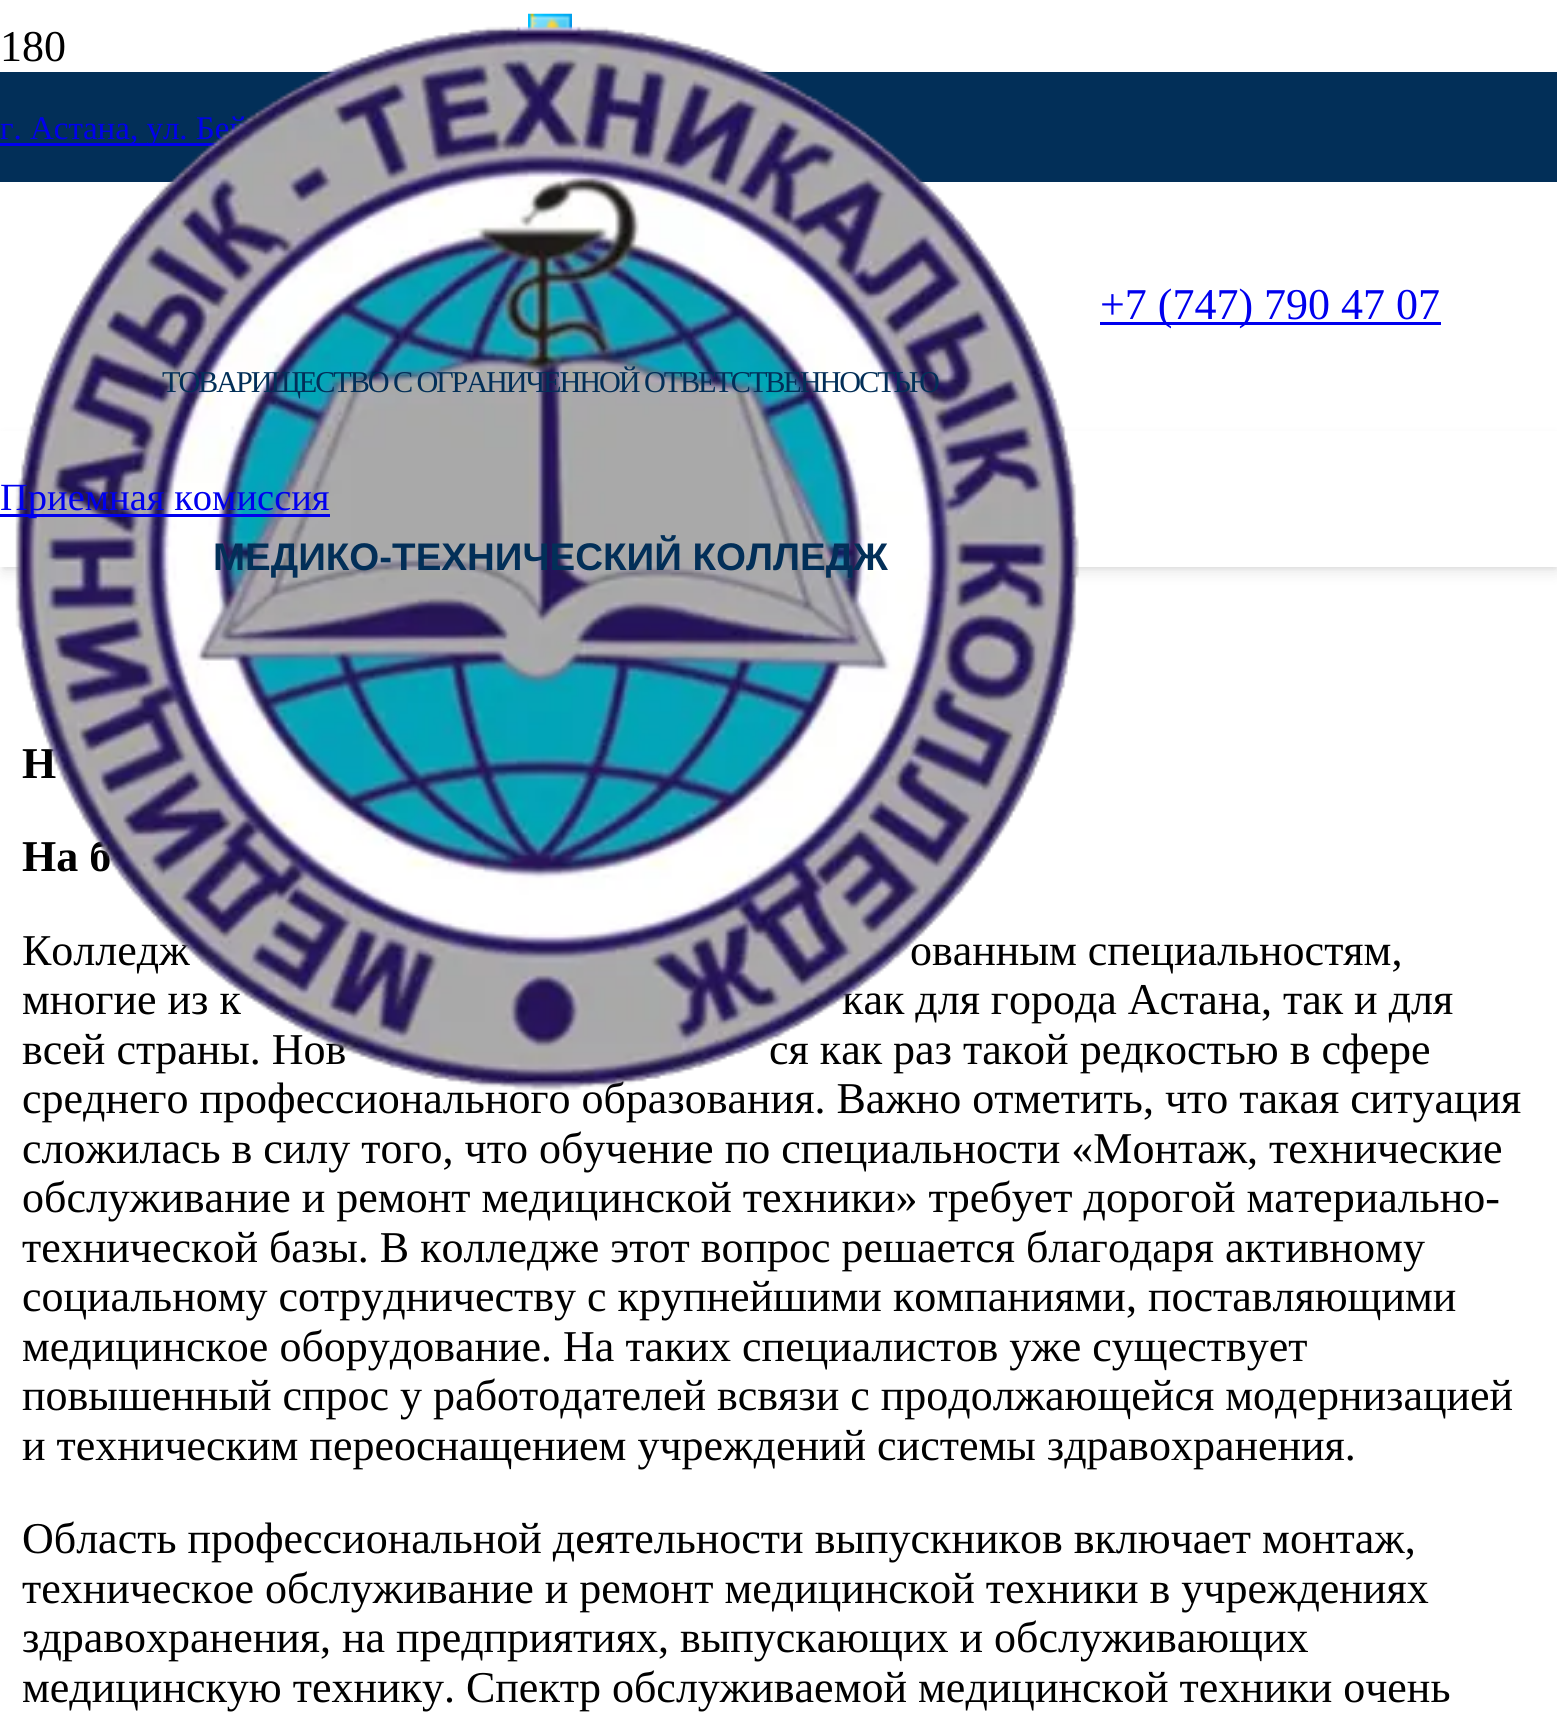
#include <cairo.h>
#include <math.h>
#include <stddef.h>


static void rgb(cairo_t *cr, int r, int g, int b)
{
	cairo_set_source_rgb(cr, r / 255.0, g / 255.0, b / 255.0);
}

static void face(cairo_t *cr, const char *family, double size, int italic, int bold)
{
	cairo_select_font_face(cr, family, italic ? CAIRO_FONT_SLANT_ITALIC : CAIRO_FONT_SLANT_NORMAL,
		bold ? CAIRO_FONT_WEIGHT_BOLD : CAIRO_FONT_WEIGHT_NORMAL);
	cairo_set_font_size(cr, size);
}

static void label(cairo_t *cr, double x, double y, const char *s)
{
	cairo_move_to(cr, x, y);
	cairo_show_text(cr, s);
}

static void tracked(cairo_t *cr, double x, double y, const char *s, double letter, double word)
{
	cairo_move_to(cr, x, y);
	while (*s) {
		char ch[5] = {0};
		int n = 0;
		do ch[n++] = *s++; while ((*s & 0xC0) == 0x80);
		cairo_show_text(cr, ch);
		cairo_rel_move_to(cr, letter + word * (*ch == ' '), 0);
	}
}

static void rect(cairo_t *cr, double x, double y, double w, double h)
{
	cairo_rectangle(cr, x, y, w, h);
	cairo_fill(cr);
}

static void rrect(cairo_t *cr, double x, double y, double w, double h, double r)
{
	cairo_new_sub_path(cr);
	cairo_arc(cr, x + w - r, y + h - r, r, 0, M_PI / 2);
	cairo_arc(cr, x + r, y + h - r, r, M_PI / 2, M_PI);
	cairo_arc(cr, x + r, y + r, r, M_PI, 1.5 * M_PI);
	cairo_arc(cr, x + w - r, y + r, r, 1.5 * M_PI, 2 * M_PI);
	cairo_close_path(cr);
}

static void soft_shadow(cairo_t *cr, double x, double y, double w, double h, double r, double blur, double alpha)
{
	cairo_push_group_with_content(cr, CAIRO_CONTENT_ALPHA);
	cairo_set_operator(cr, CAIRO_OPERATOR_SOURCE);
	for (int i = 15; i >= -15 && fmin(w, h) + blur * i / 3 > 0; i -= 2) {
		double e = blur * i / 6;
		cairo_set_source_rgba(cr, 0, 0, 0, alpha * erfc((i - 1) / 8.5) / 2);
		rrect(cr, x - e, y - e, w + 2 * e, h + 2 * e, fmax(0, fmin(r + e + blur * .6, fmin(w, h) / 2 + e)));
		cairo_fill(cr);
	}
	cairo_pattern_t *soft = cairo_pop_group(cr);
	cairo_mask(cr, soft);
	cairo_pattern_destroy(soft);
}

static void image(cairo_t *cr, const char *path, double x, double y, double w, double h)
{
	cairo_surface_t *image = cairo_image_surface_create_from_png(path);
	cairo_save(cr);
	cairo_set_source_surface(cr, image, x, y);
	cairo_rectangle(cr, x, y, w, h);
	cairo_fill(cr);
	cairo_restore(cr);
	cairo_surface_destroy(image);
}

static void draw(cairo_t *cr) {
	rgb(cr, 255, 255, 255);
	cairo_paint(cr);
	face(cr, "Liberation Serif", 44, 0, 0);
	rgb(cr, 0, 0, 0);
	label(cr, 0, 61, "180");
	rgb(cr, 2, 47, 88);
	rect(cr, 0, 72, 1557, 110);
	image(cr, "image0.png", 528, 13, 44, 19);
	rgb(cr, 0, 0, 238);
	rect(cr, 0, 143, 219, 3);
	face(cr, "Liberation Serif", 33, 0, 0);
	label(cr, 0, 139, "г. Астана, ул. Бей");
	rect(cr, 1100, 322, 341, 3);
	face(cr, "Liberation Serif", 44, 0, 0);
	label(cr, 1100, 319, "+7 (747) 790 47 07");
	rgb(cr, 0, 0, 0);
	soft_shadow(cr, 3, 437, 1554, 132, 0, 1.5, 0.05);
	soft_shadow(cr, 3, 440, 1554, 132, 0, 7, 0.1);
	rgb(cr, 255, 255, 255);
	rect(cr, 0, 431, 1557, 136);
	face(cr, "Liberation Serif", 44, 0, 1);
	rgb(cr, 0, 0, 0);
	label(cr, 22, 778, "Н");
	label(cr, 22, 871, "На б");
	face(cr, "Liberation Serif", 44, 0, 0);
	label(cr, 22, 965, "Колледж");
	label(cr, 910, 965, "ованным специальностям,");
	label(cr, 22, 1014, "многие из к");
	label(cr, 842, 1014, "как для города Астана, так и для");
	label(cr, 22, 1064, "всей страны. Нов");
	label(cr, 769, 1064, "ся как раз такой редкостью в сфере");
	label(cr, 22, 1113, "среднего профессионального образования. Важно отметить, что такая ситуация");
	image(cr, "image1.png", 15, 26, 1064, 1064);
	face(cr, "Liberation Serif", 30.25, 0, 0);
	rgb(cr, 2, 47, 88);
	tracked(cr, 162, 392, "ТОВАРИЩЕСТВО С ОГРАНИЧЕННОЙ ОТВЕТСТВЕННОСТЬЮ", -2.1, 0);
	face(cr, "Liberation Sans", 38.5, 0, 1);
	label(cr, 213, 570, "МЕДИКО-ТЕХНИЧЕСКИЙ КОЛЛЕДЖ");
	rgb(cr, 0, 0, 238);
	rect(cr, 0, 514, 330, 3);
	face(cr, "Liberation Serif", 38.5, 0, 0);
	label(cr, 0, 510, "Приемная комиссия");
	face(cr, "Liberation Serif", 44, 0, 0);
	rgb(cr, 0, 0, 0);
	label(cr, 22, 1163, "сложилась в силу того, что обучение по специальности «Монтаж, технические");
	label(cr, 22, 1212, "обслуживание и ремонт медицинской техники» требует дорогой материально-");
	label(cr, 22, 1262, "технической базы. В колледже этот вопрос решается благодаря активному");
	label(cr, 22, 1311, "социальному сотрудничеству с крупнейшими компаниями, поставляющими");
	label(cr, 22, 1361, "медицинское оборудование. На таких специалистов уже существует");
	label(cr, 22, 1410, "повышенный спрос у работодателей всвязи с продолжающейся модернизацией");
	label(cr, 22, 1460, "и техническим переоснащением учреждений системы здравохранения.");
	label(cr, 22, 1553, "Область профессиональной деятельности выпускников включает монтаж,");
	label(cr, 22, 1603, "техническое обслуживание и ремонт медицинской техники в учреждениях");
	label(cr, 22, 1652, "здравохранения, на предприятиях, выпускающих и обслуживающих");
	label(cr, 22, 1702, "медицинскую технику. Спектр обслуживаемой медицинской техники очень");
}

int main(void) {
	cairo_surface_t *surface = cairo_image_surface_create(CAIRO_FORMAT_RGB24, 1557, 1715);
	cairo_t *cr = cairo_create(surface);
	cairo_font_options_t *options = cairo_font_options_create();
	cairo_font_options_set_hint_metrics(options, CAIRO_HINT_METRICS_OFF);
	cairo_font_options_set_hint_style(options, CAIRO_HINT_STYLE_NONE);
	cairo_set_font_options(cr, options);
	cairo_set_miter_limit(cr, 4);
	draw(cr);
	cairo_surface_write_to_png(surface, "render.png");
	cairo_font_options_destroy(options);
	cairo_destroy(cr);
	cairo_surface_destroy(surface);
	return 0;
}
